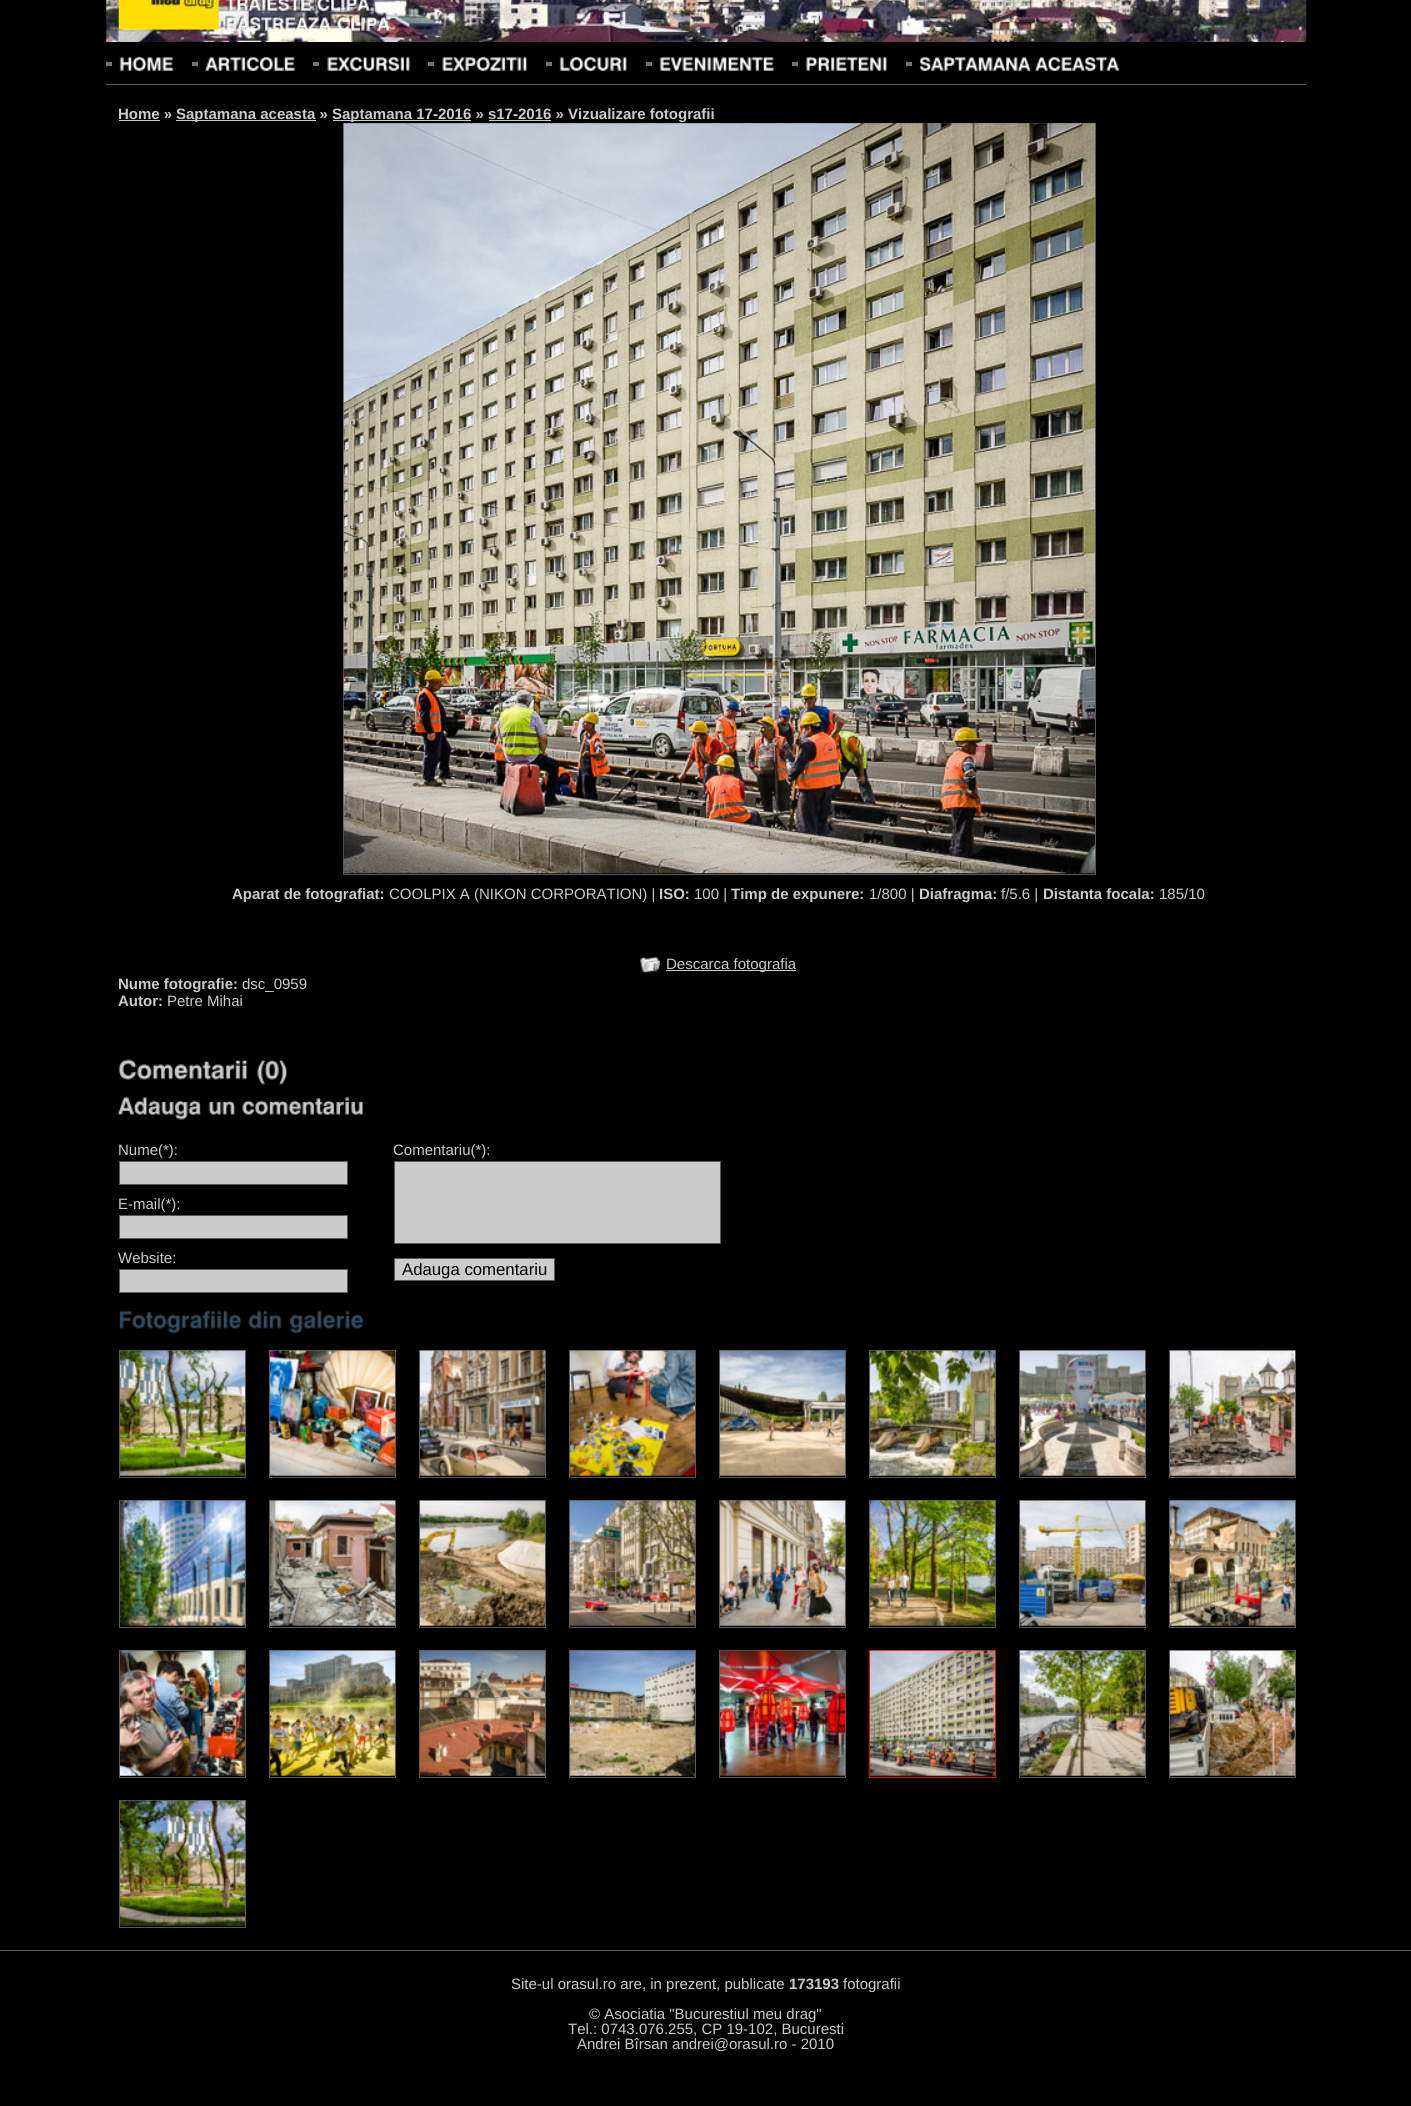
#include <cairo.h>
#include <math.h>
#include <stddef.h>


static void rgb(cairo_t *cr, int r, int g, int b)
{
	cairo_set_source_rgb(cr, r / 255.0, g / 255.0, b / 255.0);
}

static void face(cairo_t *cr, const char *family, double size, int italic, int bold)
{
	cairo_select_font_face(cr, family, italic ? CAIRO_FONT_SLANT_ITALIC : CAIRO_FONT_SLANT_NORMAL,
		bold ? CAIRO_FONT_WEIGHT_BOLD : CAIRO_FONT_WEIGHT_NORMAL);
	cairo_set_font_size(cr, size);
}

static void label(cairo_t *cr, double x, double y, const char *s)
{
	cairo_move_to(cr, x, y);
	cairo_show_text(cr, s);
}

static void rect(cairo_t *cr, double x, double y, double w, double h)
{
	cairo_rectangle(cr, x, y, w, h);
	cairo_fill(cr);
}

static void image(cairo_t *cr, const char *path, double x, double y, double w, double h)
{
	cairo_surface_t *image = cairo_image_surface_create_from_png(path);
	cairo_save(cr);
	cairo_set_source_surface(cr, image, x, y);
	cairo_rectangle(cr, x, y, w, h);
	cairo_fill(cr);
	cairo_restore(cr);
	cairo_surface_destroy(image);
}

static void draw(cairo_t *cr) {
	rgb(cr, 0, 0, 0);
	cairo_paint(cr);
	image(cr, "image0.png", 106, 0, 1201, 42);
	image(cr, "image1.png", 118, 0, 101, 30);
	image(cr, "image2.png", 225, 0, 87, 11);
	image(cr, "image3.png", 316, 0, 58, 14);
	image(cr, "image4.png", 225, 15, 106, 16);
	image(cr, "image5.png", 336, 15, 55, 16);
	rgb(cr, 90, 90, 90);
	rect(cr, 106, 84, 1200, 1);
	rgb(cr, 115, 115, 115);
	rect(cr, 106, 62, 6, 4);
	image(cr, "image6.png", 119, 56, 55, 15);
	rect(cr, 192, 62, 6, 4);
	image(cr, "image7.png", 205, 56, 91, 15);
	rect(cr, 313, 62, 6, 4);
	image(cr, "image8.png", 327, 56, 84, 15);
	rect(cr, 428, 62, 6, 4);
	image(cr, "image9.png", 442, 56, 85, 15);
	rect(cr, 546, 62, 6, 4);
	image(cr, "image10.png", 559, 56, 68, 15);
	rect(cr, 646, 62, 6, 4);
	image(cr, "image11.png", 659, 56, 115, 15);
	rect(cr, 792, 62, 6, 4);
	image(cr, "image12.png", 806, 56, 81, 15);
	rect(cr, 906, 62, 6, 4);
	image(cr, "image13.png", 919, 56, 112, 15);
	image(cr, "image14.png", 1035, 56, 84, 15);
	face(cr, "Liberation Sans", 15, 0, 1);
	rgb(cr, 204, 204, 204);
	label(cr, 118, 119, "Home »");
	rect(cr, 119, 120, 41, 1);
	rect(cr, 176, 120, 140, 1);
	label(cr, 176, 119, "Saptamana aceasta »");
	rect(cr, 333, 120, 138, 1);
	label(cr, 332, 119, "Saptamana 17-2016 » s17-2016 » Vizualizare fotografii");
	rect(cr, 489, 120, 62, 1);
	cairo_rectangle(cr, 343.5, 123.5, 752, 751);
	rgb(cr, 90, 90, 90);
	cairo_set_line_width(cr, 1);
	cairo_stroke(cr);
	image(cr, "image15.png", 343, 123, 752, 751);
	rgb(cr, 204, 204, 204);
	label(cr, 232, 899, "Aparat de fotografiat:");
	face(cr, "Liberation Sans", 15, 0, 0);
	label(cr, 389, 899, "COOLPIX A (NIKON CORPORATION) |");
	face(cr, "Liberation Sans", 15, 0, 1);
	label(cr, 659, 899, "ISO:");
	face(cr, "Liberation Sans", 15, 0, 0);
	label(cr, 694, 899, "100 |");
	face(cr, "Liberation Sans", 15, 0, 1);
	label(cr, 731, 899, "Timp de expunere:");
	face(cr, "Liberation Sans", 15, 0, 0);
	label(cr, 869, 899, "1/800 |");
	face(cr, "Liberation Sans", 15, 0, 1);
	label(cr, 919, 899, "Diafragma:");
	face(cr, "Liberation Sans", 15, 0, 0);
	label(cr, 1001, 899, "f/5.6 |");
	face(cr, "Liberation Sans", 15, 0, 1);
	label(cr, 1043, 899, "Distanta focala:");
	face(cr, "Liberation Sans", 15, 0, 0);
	label(cr, 1159, 899, "185/10");
	image(cr, "image16.png", 640, 956, 20, 18);
	rect(cr, 666, 970, 130, 1);
	label(cr, 666, 969, "Descarca fotografia");
	face(cr, "Liberation Sans", 15, 0, 1);
	label(cr, 118, 989, "Nume fotografie:");
	face(cr, "Liberation Sans", 15, 0, 0);
	label(cr, 242, 989, "dsc_0959");
	face(cr, "Liberation Sans", 15, 0, 1);
	label(cr, 118, 1006, "Autor:");
	face(cr, "Liberation Sans", 15, 0, 0);
	label(cr, 167, 1006, "Petre Mihai");
	image(cr, "image17.png", 118, 1059, 130, 21);
	image(cr, "image18.png", 257, 1060, 31, 25);
	image(cr, "image19.png", 117, 1096, 85, 24);
	image(cr, "image20.png", 208, 1100, 28, 15);
	image(cr, "image21.png", 242, 1096, 121, 19);
	label(cr, 118, 1155, "Nume(*):");
	cairo_rectangle(cr, 119.5, 1161.5, 228, 23);
	cairo_fill_preserve(cr);
	rgb(cr, 90, 90, 90);
	cairo_stroke(cr);
	rgb(cr, 204, 204, 204);
	label(cr, 118, 1209, "E-mail(*):");
	cairo_rectangle(cr, 119.5, 1215.5, 228, 23);
	cairo_fill_preserve(cr);
	rgb(cr, 90, 90, 90);
	cairo_stroke(cr);
	rgb(cr, 204, 204, 204);
	label(cr, 118, 1263, "Website:");
	cairo_rectangle(cr, 119.5, 1269.5, 228, 23);
	cairo_fill_preserve(cr);
	rgb(cr, 90, 90, 90);
	cairo_stroke(cr);
	rgb(cr, 204, 204, 204);
	label(cr, 393, 1155, "Comentariu(*):");
	cairo_rectangle(cr, 394.5, 1161.5, 326, 82);
	cairo_fill_preserve(cr);
	rgb(cr, 90, 90, 90);
	cairo_stroke(cr);
	rgb(cr, 204, 204, 204);
	cairo_rectangle(cr, 394.5, 1258.5, 160, 22);
	cairo_fill_preserve(cr);
	rgb(cr, 90, 90, 90);
	cairo_stroke(cr);
	face(cr, "Liberation Sans", 16.75, 0, 0);
	rgb(cr, 0, 0, 0);
	label(cr, 402, 1275, "Adauga comentariu");
	image(cr, "image22.png", 119, 1310, 123, 24);
	image(cr, "image23.png", 248, 1310, 34, 19);
	image(cr, "image24.png", 289, 1310, 75, 24);
	cairo_rectangle(cr, 119.5, 1350.5, 126, 127);
	rgb(cr, 90, 90, 90);
	cairo_stroke(cr);
	image(cr, "image25.png", 120, 1350, 125, 126);
	cairo_rectangle(cr, 269.5, 1350.5, 126, 127);
	cairo_stroke(cr);
	image(cr, "image26.png", 270, 1350, 125, 126);
	cairo_rectangle(cr, 419.5, 1350.5, 126, 127);
	cairo_stroke(cr);
	image(cr, "image27.png", 420, 1350, 125, 126);
	cairo_rectangle(cr, 569.5, 1350.5, 126, 127);
	cairo_stroke(cr);
	image(cr, "image28.png", 570, 1350, 125, 126);
	cairo_rectangle(cr, 719.5, 1350.5, 126, 127);
	cairo_stroke(cr);
	image(cr, "image29.png", 720, 1350, 125, 126);
	cairo_rectangle(cr, 869.5, 1350.5, 126, 127);
	cairo_stroke(cr);
	image(cr, "image30.png", 870, 1350, 125, 126);
	cairo_rectangle(cr, 1019.5, 1350.5, 126, 127);
	cairo_stroke(cr);
	image(cr, "image31.png", 1020, 1350, 125, 126);
	cairo_rectangle(cr, 1169.5, 1350.5, 126, 127);
	cairo_stroke(cr);
	image(cr, "image32.png", 1170, 1350, 125, 126);
	cairo_rectangle(cr, 119.5, 1500.5, 126, 127);
	cairo_stroke(cr);
	image(cr, "image33.png", 120, 1500, 125, 126);
	cairo_rectangle(cr, 269.5, 1500.5, 126, 127);
	cairo_stroke(cr);
	image(cr, "image34.png", 270, 1500, 125, 126);
	cairo_rectangle(cr, 419.5, 1500.5, 126, 127);
	cairo_stroke(cr);
	image(cr, "image35.png", 420, 1500, 125, 126);
	cairo_rectangle(cr, 569.5, 1500.5, 126, 127);
	cairo_stroke(cr);
	image(cr, "image36.png", 570, 1500, 125, 126);
	cairo_rectangle(cr, 719.5, 1500.5, 126, 127);
	cairo_stroke(cr);
	image(cr, "image37.png", 720, 1500, 125, 126);
	cairo_rectangle(cr, 869.5, 1500.5, 126, 127);
	cairo_stroke(cr);
	image(cr, "image38.png", 870, 1500, 125, 126);
	cairo_rectangle(cr, 1019.5, 1500.5, 126, 127);
	cairo_stroke(cr);
	image(cr, "image39.png", 1020, 1500, 125, 126);
	cairo_rectangle(cr, 1169.5, 1500.5, 126, 127);
	cairo_stroke(cr);
	image(cr, "image40.png", 1170, 1500, 125, 126);
	cairo_rectangle(cr, 119.5, 1650.5, 126, 127);
	cairo_stroke(cr);
	image(cr, "image41.png", 120, 1650, 125, 126);
	cairo_rectangle(cr, 269.5, 1650.5, 126, 127);
	cairo_stroke(cr);
	image(cr, "image42.png", 270, 1650, 125, 126);
	cairo_rectangle(cr, 419.5, 1650.5, 126, 127);
	cairo_stroke(cr);
	image(cr, "image43.png", 420, 1650, 125, 126);
	cairo_rectangle(cr, 569.5, 1650.5, 126, 127);
	cairo_stroke(cr);
	image(cr, "image44.png", 570, 1650, 125, 126);
	cairo_rectangle(cr, 719.5, 1650.5, 126, 127);
	cairo_stroke(cr);
	image(cr, "image45.png", 720, 1650, 125, 126);
	cairo_rectangle(cr, 869.5, 1650.5, 126, 127);
	rgb(cr, 255, 0, 0);
	cairo_stroke(cr);
	image(cr, "image46.png", 870, 1650, 125, 126);
	cairo_rectangle(cr, 1019.5, 1650.5, 126, 127);
	rgb(cr, 90, 90, 90);
	cairo_stroke(cr);
	image(cr, "image47.png", 1020, 1650, 125, 126);
	cairo_rectangle(cr, 1169.5, 1650.5, 126, 127);
	cairo_stroke(cr);
	image(cr, "image48.png", 1170, 1650, 125, 126);
	cairo_rectangle(cr, 119.5, 1800.5, 126, 127);
	cairo_stroke(cr);
	image(cr, "image49.png", 120, 1800, 125, 126);
	rect(cr, 0, 1950, 1411, 1);
	face(cr, "Liberation Sans", 15, 0, 0);
	rgb(cr, 204, 204, 204);
	label(cr, 511, 1989, "Site-ul orasul.ro are, in prezent, publicate");
	face(cr, "Liberation Sans", 15, 0, 1);
	label(cr, 789, 1989, "173193");
	face(cr, "Liberation Sans", 15, 0, 0);
	label(cr, 843, 1989, "fotografii");
	label(cr, 589, 2019, "© Asociatia \"Bucurestiul meu drag\"");
	label(cr, 568, 2034, "Tel.: 0743.076.255, CP 19-102, Bucuresti");
	label(cr, 577, 2049, "Andrei Bîrsan andrei@orasul.ro - 2010");
}

int main(void) {
	cairo_surface_t *surface = cairo_image_surface_create(CAIRO_FORMAT_RGB24, 1411, 2106);
	cairo_t *cr = cairo_create(surface);
	cairo_font_options_t *options = cairo_font_options_create();
	cairo_font_options_set_hint_metrics(options, CAIRO_HINT_METRICS_OFF);
	cairo_font_options_set_hint_style(options, CAIRO_HINT_STYLE_NONE);
	cairo_set_font_options(cr, options);
	cairo_set_miter_limit(cr, 4);
	draw(cr);
	cairo_surface_write_to_png(surface, "render.png");
	cairo_font_options_destroy(options);
	cairo_destroy(cr);
	cairo_surface_destroy(surface);
	return 0;
}
